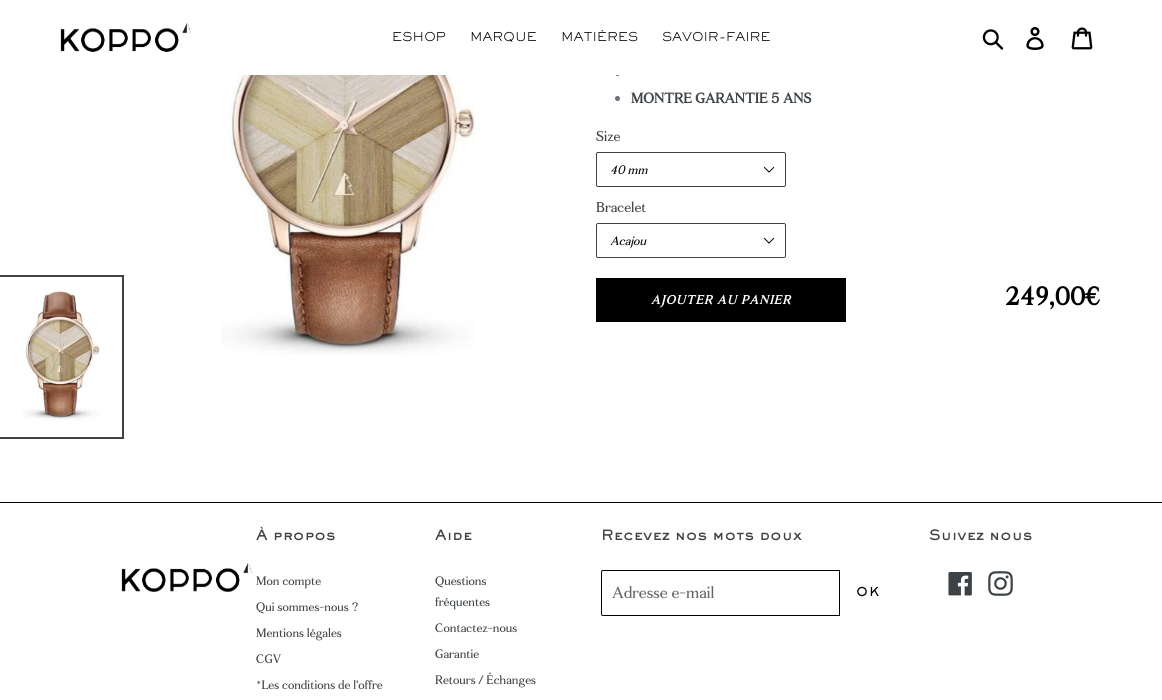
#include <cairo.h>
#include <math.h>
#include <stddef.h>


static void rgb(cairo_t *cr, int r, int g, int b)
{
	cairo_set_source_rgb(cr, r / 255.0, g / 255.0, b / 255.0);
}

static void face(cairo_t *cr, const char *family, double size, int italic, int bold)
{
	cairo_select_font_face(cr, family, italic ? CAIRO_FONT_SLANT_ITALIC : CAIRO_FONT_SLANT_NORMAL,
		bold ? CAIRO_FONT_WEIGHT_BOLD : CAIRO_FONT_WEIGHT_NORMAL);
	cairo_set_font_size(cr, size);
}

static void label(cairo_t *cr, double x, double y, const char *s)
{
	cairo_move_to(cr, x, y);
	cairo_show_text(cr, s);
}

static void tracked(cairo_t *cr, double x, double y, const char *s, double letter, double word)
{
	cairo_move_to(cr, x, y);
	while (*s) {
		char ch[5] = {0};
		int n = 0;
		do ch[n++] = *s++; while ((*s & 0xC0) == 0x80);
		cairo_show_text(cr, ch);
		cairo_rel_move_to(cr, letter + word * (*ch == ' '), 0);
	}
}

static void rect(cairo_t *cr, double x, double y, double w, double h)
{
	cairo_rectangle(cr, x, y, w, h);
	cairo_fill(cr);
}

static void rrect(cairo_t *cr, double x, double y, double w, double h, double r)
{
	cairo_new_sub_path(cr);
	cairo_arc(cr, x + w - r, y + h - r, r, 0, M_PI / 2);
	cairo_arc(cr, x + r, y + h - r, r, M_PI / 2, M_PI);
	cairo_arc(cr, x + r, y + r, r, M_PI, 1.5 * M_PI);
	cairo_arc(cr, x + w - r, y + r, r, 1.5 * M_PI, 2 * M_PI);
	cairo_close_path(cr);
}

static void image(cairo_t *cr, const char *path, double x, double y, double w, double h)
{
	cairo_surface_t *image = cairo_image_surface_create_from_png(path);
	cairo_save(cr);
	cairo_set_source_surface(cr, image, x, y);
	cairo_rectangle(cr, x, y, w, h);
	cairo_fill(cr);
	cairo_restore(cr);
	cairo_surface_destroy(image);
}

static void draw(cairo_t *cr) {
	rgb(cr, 255, 255, 255);
	cairo_paint(cr);
	rgb(cr, 105, 114, 123);
	cairo_arc(cr, 617.5, 73.5, 2.5, 0, 2 * M_PI);
	cairo_fill(cr);
	rgb(cr, 255, 255, 255);
	rect(cr, 615, 71, 5, 4);
	image(cr, "image0.png", 60, 23, 132, 29);
	face(cr, "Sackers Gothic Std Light", 12, 0, 0);
	rgb(cr, 0, 0, 0);
	label(cr, 392, 41, "ESHOP");
	label(cr, 470, 41, "MARQUE");
	label(cr, 561, 41, "MATIÈRES");
	label(cr, 662, 41, "SAVOIR-FAIRE");
	image(cr, "image1.png", 982, 29, 22, 21);
	image(cr, "image2.png", 1026, 27, 18, 23);
	image(cr, "image3.png", 1071, 27, 22, 23);
	cairo_rectangle(cr, -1, 276, 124, 162);
	rgb(cr, 61, 66, 70);
	cairo_stroke(cr);
	image(cr, "image4.png", 23, 290, 77, 131);
	image(cr, "image5.png", 221, 75, 255, 280);
	rgb(cr, 105, 114, 123);
	cairo_arc(cr, 617.5, 98.5, 2.5, 0, 2 * M_PI);
	cairo_fill(cr);
	face(cr, "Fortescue", 14, 0, 1);
	rgb(cr, 61, 66, 70);
	label(cr, 631, 103, "MONTRE GARANTIE 5 ANS");
	face(cr, "Fortescue", 14, 0, 0);
	label(cr, 596, 141, "Size");
	image(cr, "image6.png", 763, 166, 12, 7);
	rrect(cr, 596.5, 152.5, 189, 34, 1.5);
	cairo_set_line_width(cr, 1);
	cairo_stroke(cr);
	face(cr, "Fortescue", 12, 1, 0);
	rgb(cr, 0, 0, 0);
	label(cr, 610, 174, "40 mm");
	face(cr, "Fortescue", 14, 0, 0);
	rgb(cr, 61, 66, 70);
	label(cr, 596, 212, "Bracelet");
	image(cr, "image6.png", 763, 237, 12, 7);
	rrect(cr, 596.5, 223.5, 189, 34, 1.5);
	cairo_stroke(cr);
	face(cr, "Fortescue", 12, 1, 0);
	rgb(cr, 0, 0, 0);
	label(cr, 610, 245, "Acajou");
	rect(cr, 596, 278, 250, 44);
	face(cr, "Fortescue", 12, 1, 1);
	rgb(cr, 255, 255, 255);
	tracked(cr, 651, 304, "AJOUTER AU PANIER", 1.1, 0);
	face(cr, "Fortescue", 25, 0, 1);
	rgb(cr, 0, 0, 0);
	label(cr, 1005, 305, "249,00€");
	rect(cr, 0, 502, 1162, 1);
	image(cr, "image7.png", 121, 563, 132, 30);
	face(cr, "Sackers Gothic Std Black", 14, 0, 0);
	rgb(cr, 61, 66, 70);
	label(cr, 256, 540, "À propos");
	face(cr, "Fortescue", 12, 0, 0);
	label(cr, 256, 585, "Mon compte");
	label(cr, 256, 611, "Qui sommes-nous ?");
	label(cr, 256, 637, "Mentions légales");
	label(cr, 256, 663, "CGV");
	label(cr, 256, 689, "*Les conditions de l'offre");
	face(cr, "Sackers Gothic Std Black", 14, 0, 0);
	label(cr, 435, 540, "Aide");
	face(cr, "Fortescue", 12, 0, 0);
	label(cr, 435, 585, "Questions");
	label(cr, 435, 606, "fréquentes");
	label(cr, 435, 632, "Contactez-nous");
	label(cr, 435, 658, "Garantie");
	label(cr, 435, 684, "Retours / Échanges");
	face(cr, "Sackers Gothic Std Black", 14, 0, 0);
	label(cr, 601, 540, "Recevez nos mots doux");
	cairo_new_path(cr);
	cairo_move_to(cr, 603, 570.5);
	cairo_line_to(cr, 839.5, 570.5);
	cairo_line_to(cr, 839.5, 615.5);
	cairo_line_to(cr, 603, 615.5);
	cairo_curve_to(cr, 602, 615.5, 601.5, 615, 601.5, 614);
	cairo_line_to(cr, 601.5, 572);
	cairo_curve_to(cr, 601.5, 571, 602, 570.5, 603, 570.5);
	cairo_close_path(cr);
	rgb(cr, 0, 0, 0);
	cairo_stroke(cr);
	face(cr, "Fortescue", 16, 0, 0);
	rgb(cr, 102, 102, 102);
	label(cr, 612, 598, "Adresse e-mail");
	face(cr, "Sackers Gothic Std Black", 12, 0, 0);
	rgb(cr, 0, 0, 0);
	tracked(cr, 856, 596, "OK", 1, 0);
	face(cr, "Sackers Gothic Std Black", 14, 0, 0);
	rgb(cr, 61, 66, 70);
	label(cr, 929, 540, "Suivez nous");
	image(cr, "image8.png", 948, 572, 24, 24);
	image(cr, "image9.png", 988, 571, 25, 25);
}

int main(void) {
	cairo_surface_t *surface = cairo_image_surface_create(CAIRO_FORMAT_RGB24, 1162, 700);
	cairo_t *cr = cairo_create(surface);
	cairo_font_options_t *options = cairo_font_options_create();
	cairo_font_options_set_hint_metrics(options, CAIRO_HINT_METRICS_OFF);
	cairo_font_options_set_hint_style(options, CAIRO_HINT_STYLE_NONE);
	cairo_set_font_options(cr, options);
	cairo_set_miter_limit(cr, 4);
	draw(cr);
	cairo_surface_write_to_png(surface, "render.png");
	cairo_font_options_destroy(options);
	cairo_destroy(cr);
	cairo_surface_destroy(surface);
	return 0;
}
